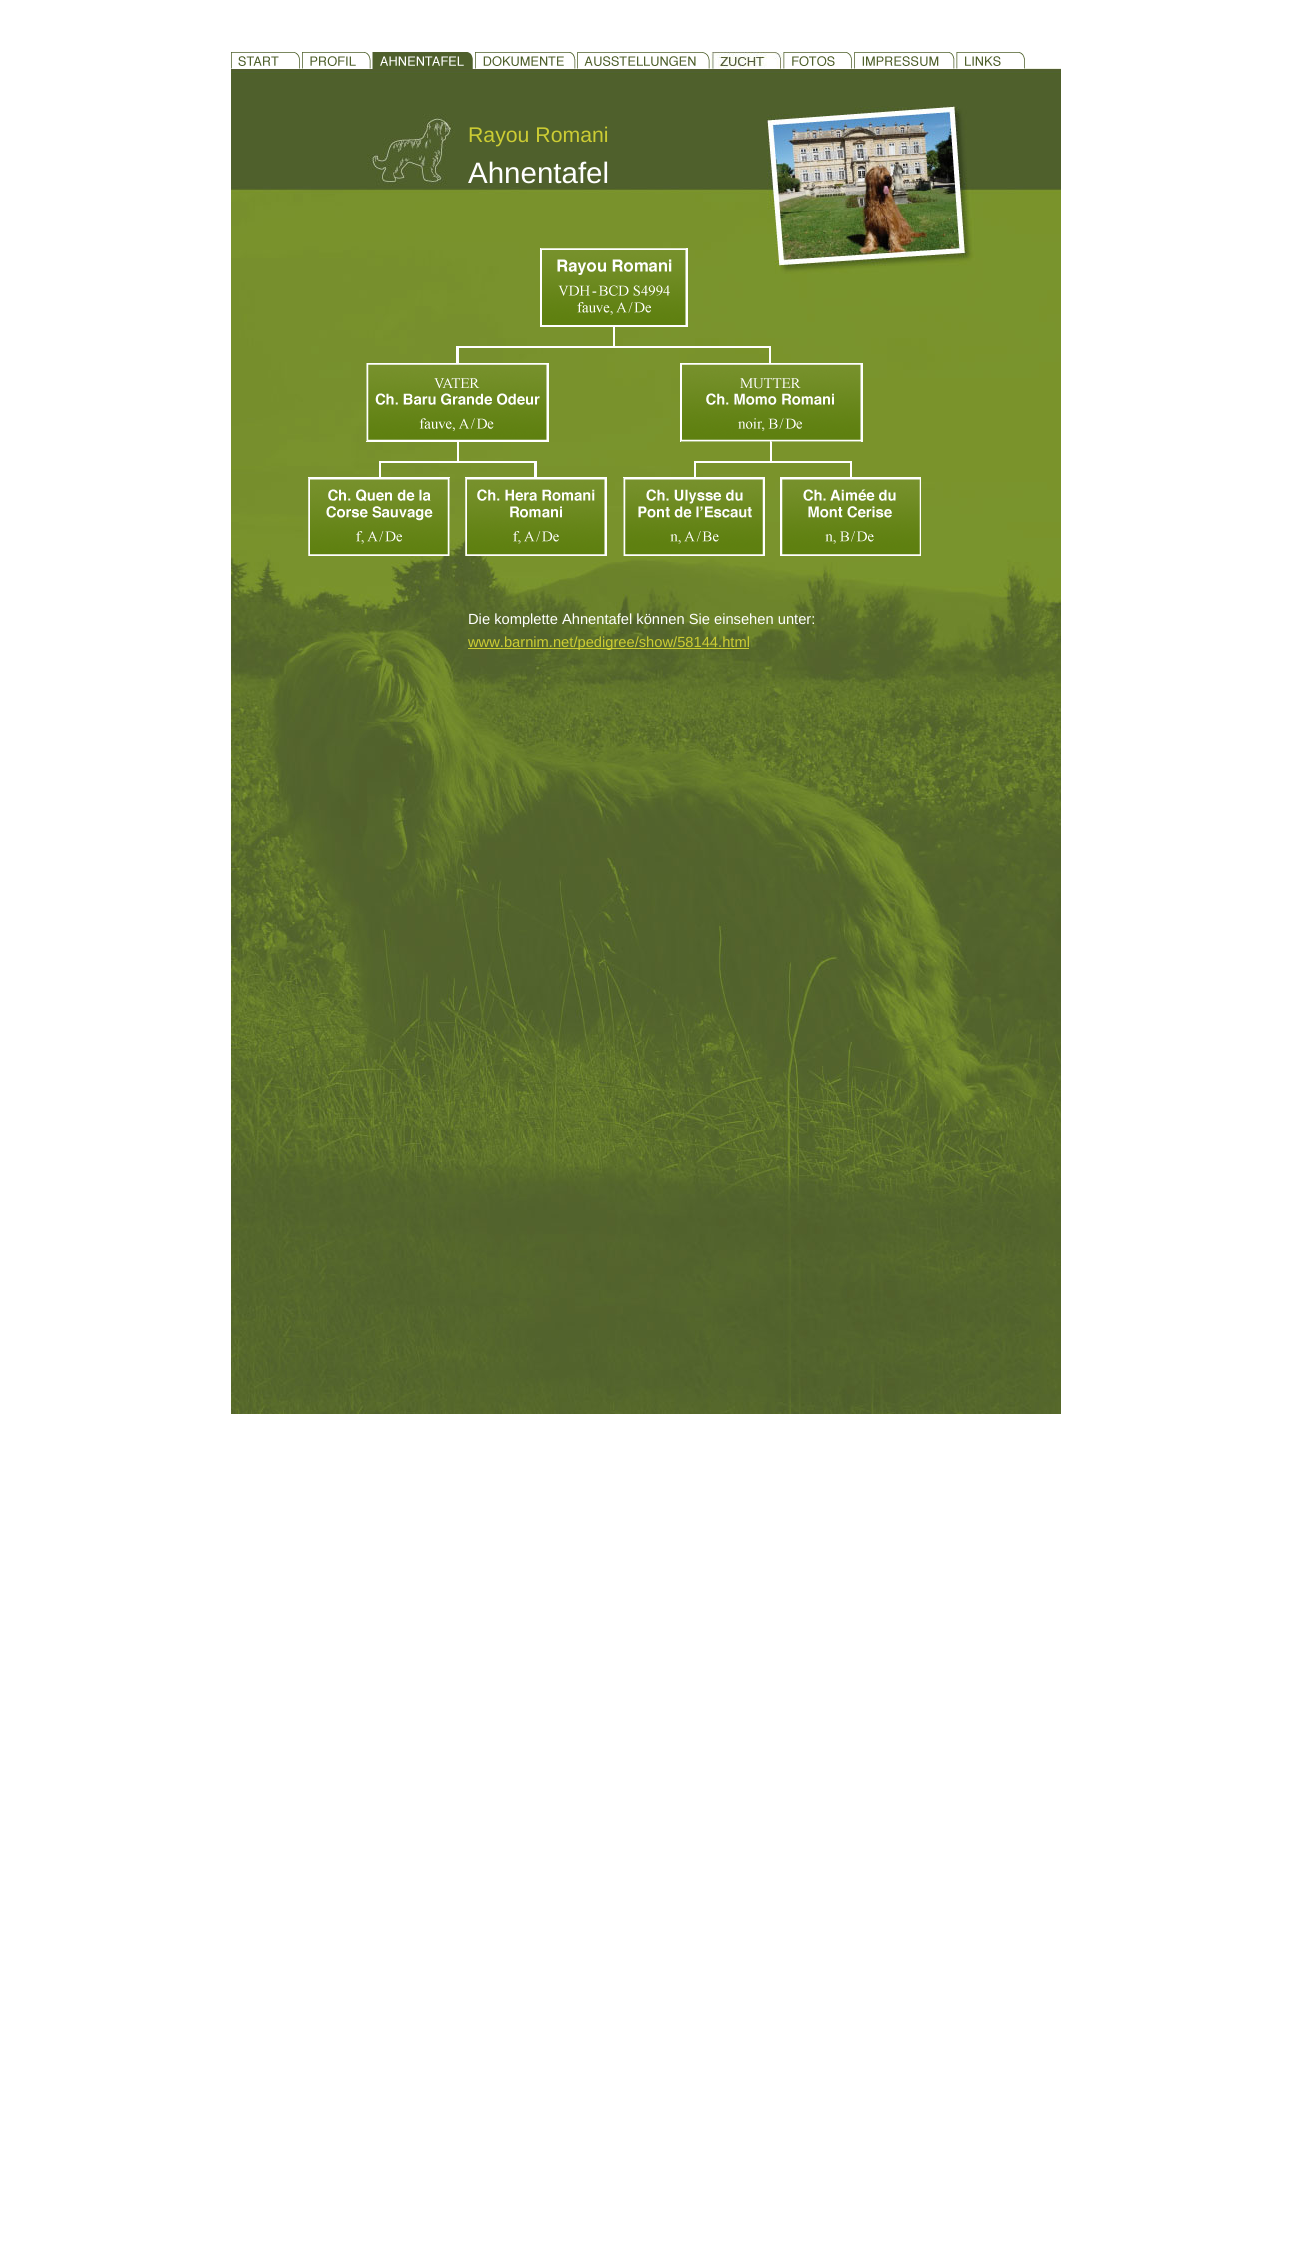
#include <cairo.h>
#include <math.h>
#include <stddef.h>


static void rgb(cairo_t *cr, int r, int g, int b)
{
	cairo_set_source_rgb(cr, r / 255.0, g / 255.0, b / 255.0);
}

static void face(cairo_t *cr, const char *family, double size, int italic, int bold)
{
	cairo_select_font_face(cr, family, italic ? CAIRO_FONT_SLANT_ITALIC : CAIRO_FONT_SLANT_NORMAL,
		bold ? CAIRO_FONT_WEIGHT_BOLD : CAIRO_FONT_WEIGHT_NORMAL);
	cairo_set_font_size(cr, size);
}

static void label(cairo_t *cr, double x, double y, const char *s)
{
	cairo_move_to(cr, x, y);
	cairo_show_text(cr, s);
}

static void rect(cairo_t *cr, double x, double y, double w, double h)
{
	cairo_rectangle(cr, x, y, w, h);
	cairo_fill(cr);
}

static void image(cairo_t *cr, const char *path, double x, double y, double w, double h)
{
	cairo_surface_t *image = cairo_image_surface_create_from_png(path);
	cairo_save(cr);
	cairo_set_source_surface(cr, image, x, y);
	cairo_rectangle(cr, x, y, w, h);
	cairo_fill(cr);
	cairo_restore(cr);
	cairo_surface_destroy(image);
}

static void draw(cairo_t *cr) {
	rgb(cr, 255, 255, 255);
	cairo_paint(cr);
	image(cr, "image0.png", 231, 68, 830, 1346);
	image(cr, "image1.png", 231, 52, 70, 17);
	image(cr, "image2.png", 301, 52, 70, 17);
	image(cr, "image3.png", 371, 52, 103, 17);
	image(cr, "image4.png", 474, 52, 102, 17);
	image(cr, "image5.png", 576, 52, 135, 17);
	image(cr, "image6.png", 711, 52, 72, 17);
	image(cr, "image7.png", 783, 52, 70, 17);
	image(cr, "image8.png", 853, 52, 102, 17);
	image(cr, "image9.png", 955, 52, 70, 17);
	face(cr, "Liberation Sans", 21.25, 0, 0);
	rgb(cr, 204, 204, 51);
	label(cr, 468, 142, "Rayou Romani");
	face(cr, "Liberation Sans", 29.5, 0, 0);
	rgb(cr, 255, 255, 255);
	label(cr, 468, 183, "Ahnentafel");
	image(cr, "image10.png", 308, 248, 613, 308);
	face(cr, "Liberation Sans", 14.7, 0, 0);
	label(cr, 468, 624, "Die komplette Ahnentafel können Sie einsehen unter:");
	rgb(cr, 204, 204, 51);
	rect(cr, 468, 648, 281, 1);
	label(cr, 468, 647, "www.barnim.net/pedigree/show/58144.html");
}

int main(void) {
	cairo_surface_t *surface = cairo_image_surface_create(CAIRO_FORMAT_RGB24, 1292, 2252);
	cairo_t *cr = cairo_create(surface);
	cairo_font_options_t *options = cairo_font_options_create();
	cairo_font_options_set_hint_metrics(options, CAIRO_HINT_METRICS_OFF);
	cairo_font_options_set_hint_style(options, CAIRO_HINT_STYLE_NONE);
	cairo_set_font_options(cr, options);
	cairo_set_miter_limit(cr, 4);
	draw(cr);
	cairo_surface_write_to_png(surface, "render.png");
	cairo_font_options_destroy(options);
	cairo_destroy(cr);
	cairo_surface_destroy(surface);
	return 0;
}
